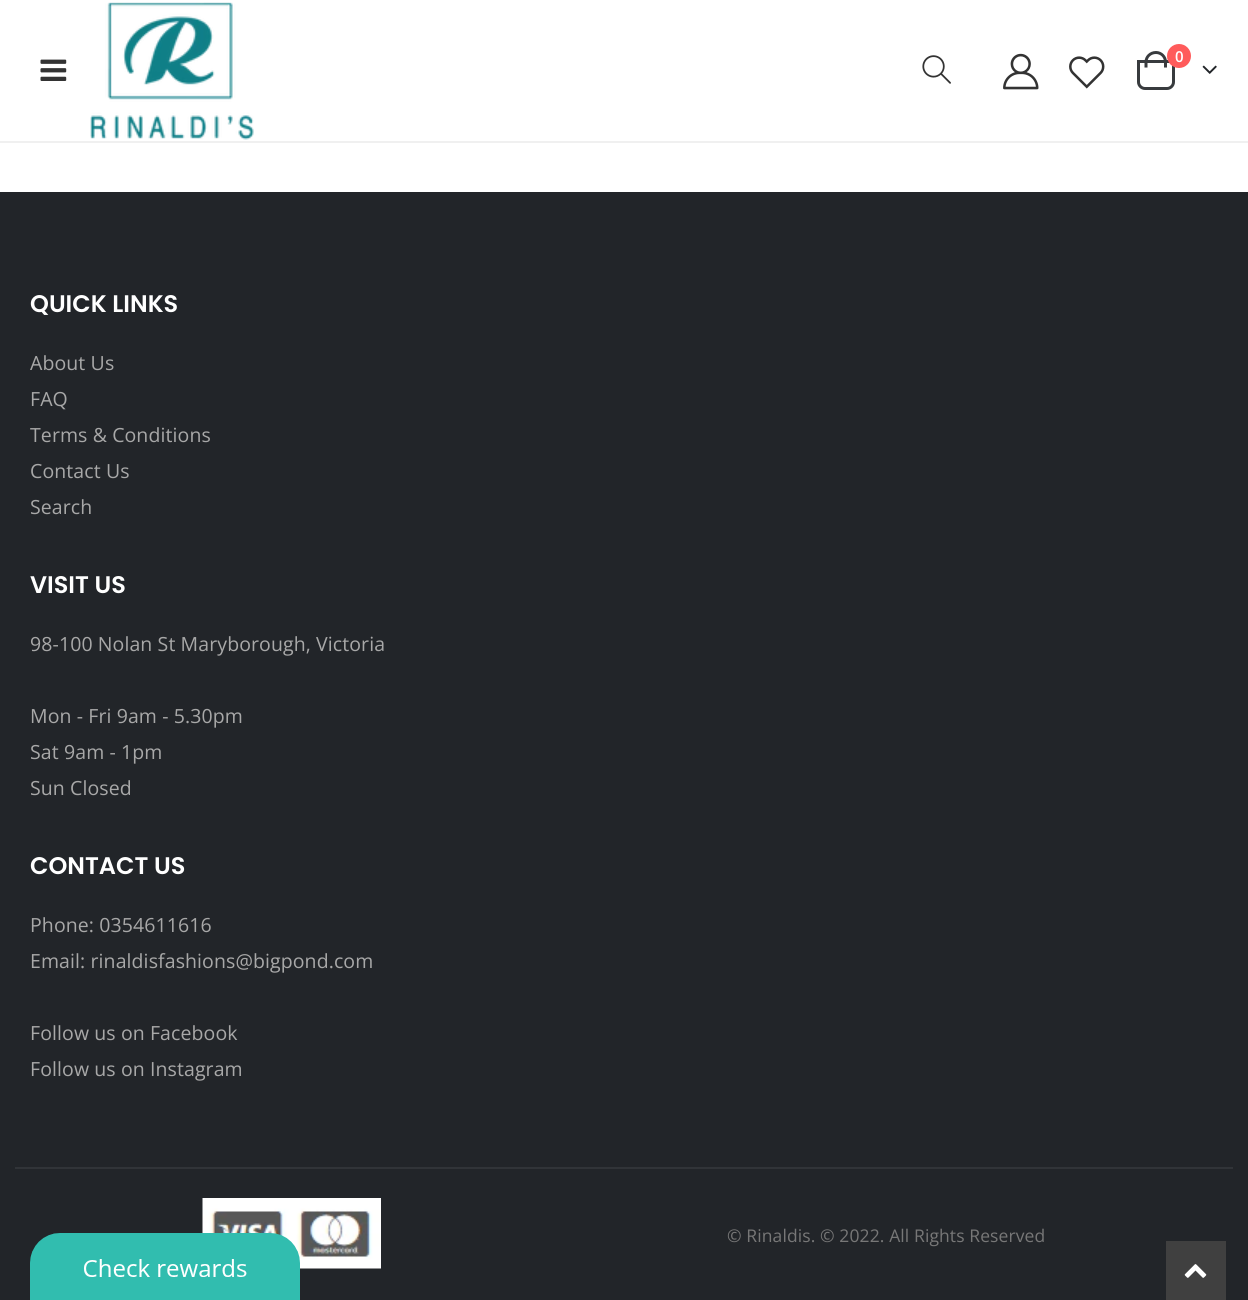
#include <cairo.h>
#include <math.h>
#include <stddef.h>


static void rgb(cairo_t *cr, int r, int g, int b)
{
	cairo_set_source_rgb(cr, r / 255.0, g / 255.0, b / 255.0);
}

static void face(cairo_t *cr, const char *family, double size, int italic, int bold)
{
	cairo_select_font_face(cr, family, italic ? CAIRO_FONT_SLANT_ITALIC : CAIRO_FONT_SLANT_NORMAL,
		bold ? CAIRO_FONT_WEIGHT_BOLD : CAIRO_FONT_WEIGHT_NORMAL);
	cairo_set_font_size(cr, size);
}

static void label(cairo_t *cr, double x, double y, const char *s)
{
	cairo_move_to(cr, x, y);
	cairo_show_text(cr, s);
}

static void tracked(cairo_t *cr, double x, double y, const char *s, double letter, double word)
{
	cairo_move_to(cr, x, y);
	while (*s) {
		char ch[5] = {0};
		int n = 0;
		do ch[n++] = *s++; while ((*s & 0xC0) == 0x80);
		cairo_show_text(cr, ch);
		cairo_rel_move_to(cr, letter + word * (*ch == ' '), 0);
	}
}

static void rect(cairo_t *cr, double x, double y, double w, double h)
{
	cairo_rectangle(cr, x, y, w, h);
	cairo_fill(cr);
}

static void image(cairo_t *cr, const char *path, double x, double y, double w, double h)
{
	cairo_surface_t *image = cairo_image_surface_create_from_png(path);
	cairo_save(cr);
	cairo_set_source_surface(cr, image, x, y);
	cairo_rectangle(cr, x, y, w, h);
	cairo_fill(cr);
	cairo_restore(cr);
	cairo_surface_destroy(image);
}

static void draw(cairo_t *cr) {
	rgb(cr, 255, 255, 255);
	cairo_paint(cr);
	rgb(cr, 240, 240, 240);
	rect(cr, 0, 141, 1248, 2);
	image(cr, "image0.png", 40, 59, 27, 22);
	image(cr, "image1.png", 90, 2, 164, 138);
	image(cr, "image2.png", 922, 55, 29, 29);
	image(cr, "image3.png", 1003, 53, 36, 37);
	image(cr, "image4.png", 1069, 56, 36, 33);
	cairo_new_path(cr);
	cairo_move_to(cr, 1138.5, 61.5);
	cairo_line_to(cr, 1173.5, 61.5);
	cairo_line_to(cr, 1173.5, 82);
	cairo_curve_to(cr, 1173.5, 85.5, 1170.5, 88.5, 1167, 88.5);
	cairo_line_to(cr, 1145, 88.5);
	cairo_curve_to(cr, 1141.5, 88.5, 1138.5, 85.5, 1138.5, 82);
	cairo_close_path(cr);
	rgb(cr, 56, 59, 62);
	cairo_set_line_width(cr, 3);
	cairo_stroke(cr);
	cairo_set_fill_rule(cr, CAIRO_FILL_RULE_EVEN_ODD);
	cairo_new_path(cr);
	cairo_move_to(cr, 1156, 51);
	cairo_curve_to(cr, 1162, 51, 1167, 56, 1167, 62);
	cairo_line_to(cr, 1167, 67.5);
	cairo_line_to(cr, 1144.5, 67.5);
	cairo_line_to(cr, 1144.5, 62);
	cairo_curve_to(cr, 1144.5, 56, 1149.5, 51, 1156, 51);
	cairo_close_path(cr);
	cairo_move_to(cr, 1156, 54);
	cairo_curve_to(cr, 1160.5, 54, 1164, 57.5, 1164, 62);
	cairo_line_to(cr, 1164, 67.5);
	cairo_line_to(cr, 1147.5, 67.5);
	cairo_line_to(cr, 1147.5, 62);
	cairo_curve_to(cr, 1147.5, 57.5, 1151, 54, 1156, 54);
	cairo_close_path(cr);
	cairo_fill(cr);
	rgb(cr, 255, 91, 91);
	cairo_arc(cr, 1179, 56, 12, 0, 2 * M_PI);
	cairo_fill(cr);
	face(cr, "Open Sans SemiBold", 15, 0, 0);
	rgb(cr, 255, 255, 255);
	label(cr, 1175, 62, "0");
	image(cr, "image5.png", 1202, 65, 15, 9);
	rgb(cr, 34, 37, 41);
	rect(cr, 0, 192, 1248, 1108);
	face(cr, "Poppins SemiBold", 24, 0, 0);
	rgb(cr, 255, 255, 255);
	label(cr, 30, 312, "QUICK LINKS");
	face(cr, "Open Sans", 19.5, 0, 0);
	rgb(cr, 168, 168, 168);
	tracked(cr, 30, 370, "About Us", 0.1, 0);
	tracked(cr, 30, 406, "FAQ", 0.1, 0);
	tracked(cr, 30, 442, "Terms & Conditions", 0.1, 0);
	tracked(cr, 30, 478, "Contact Us", 0.1, 0);
	tracked(cr, 30, 514, "Search", 0.1, 0);
	face(cr, "Poppins SemiBold", 24, 0, 0);
	rgb(cr, 255, 255, 255);
	label(cr, 30, 593, "VISIT US");
	face(cr, "Open Sans", 19.5, 0, 0);
	rgb(cr, 168, 168, 168);
	tracked(cr, 30, 651, "98-100 Nolan St Maryborough, Victoria", 0.1, 0);
	tracked(cr, 30, 723, "Mon - Fri 9am - 5.30pm", 0.1, 0);
	tracked(cr, 30, 759, "Sat 9am - 1pm", 0.1, 0);
	tracked(cr, 30, 795, "Sun Closed", 0.1, 0);
	face(cr, "Poppins SemiBold", 24, 0, 0);
	rgb(cr, 255, 255, 255);
	label(cr, 30, 874, "CONTACT US");
	face(cr, "Open Sans", 19.5, 0, 0);
	rgb(cr, 168, 168, 168);
	tracked(cr, 30, 932, "Phone: 0354611616", 0.1, 0);
	tracked(cr, 30, 968, "Email: rinaldisfashions@bigpond.com", 0.1, 0);
	tracked(cr, 30, 1040, "Follow us on Facebook", 0.1, 0);
	tracked(cr, 30, 1076, "Follow us on Instagram", 0.1, 0);
	rgb(cr, 49, 52, 56);
	rect(cr, 15, 1167, 1218, 2);
	image(cr, "image6.png", 202, 1198, 179, 71);
	face(cr, "Open Sans", 17.5, 0, 0);
	rgb(cr, 119, 119, 119);
	tracked(cr, 727, 1242, "© Rinaldis. © 2022. All Rights Reserved", 0.1, 0);
	rgb(cr, 64, 64, 64);
	rect(cr, 1166, 1241, 60, 59);
	image(cr, "image7.png", 1184, 1264, 23, 14);
	image(cr, "image8.png", 30, 1233, 270, 67);
}

int main(void) {
	cairo_surface_t *surface = cairo_image_surface_create(CAIRO_FORMAT_RGB24, 1248, 1300);
	cairo_t *cr = cairo_create(surface);
	cairo_font_options_t *options = cairo_font_options_create();
	cairo_font_options_set_hint_metrics(options, CAIRO_HINT_METRICS_OFF);
	cairo_font_options_set_hint_style(options, CAIRO_HINT_STYLE_NONE);
	cairo_set_font_options(cr, options);
	cairo_set_miter_limit(cr, 4);
	draw(cr);
	cairo_surface_write_to_png(surface, "render.png");
	cairo_font_options_destroy(options);
	cairo_destroy(cr);
	cairo_surface_destroy(surface);
	return 0;
}
